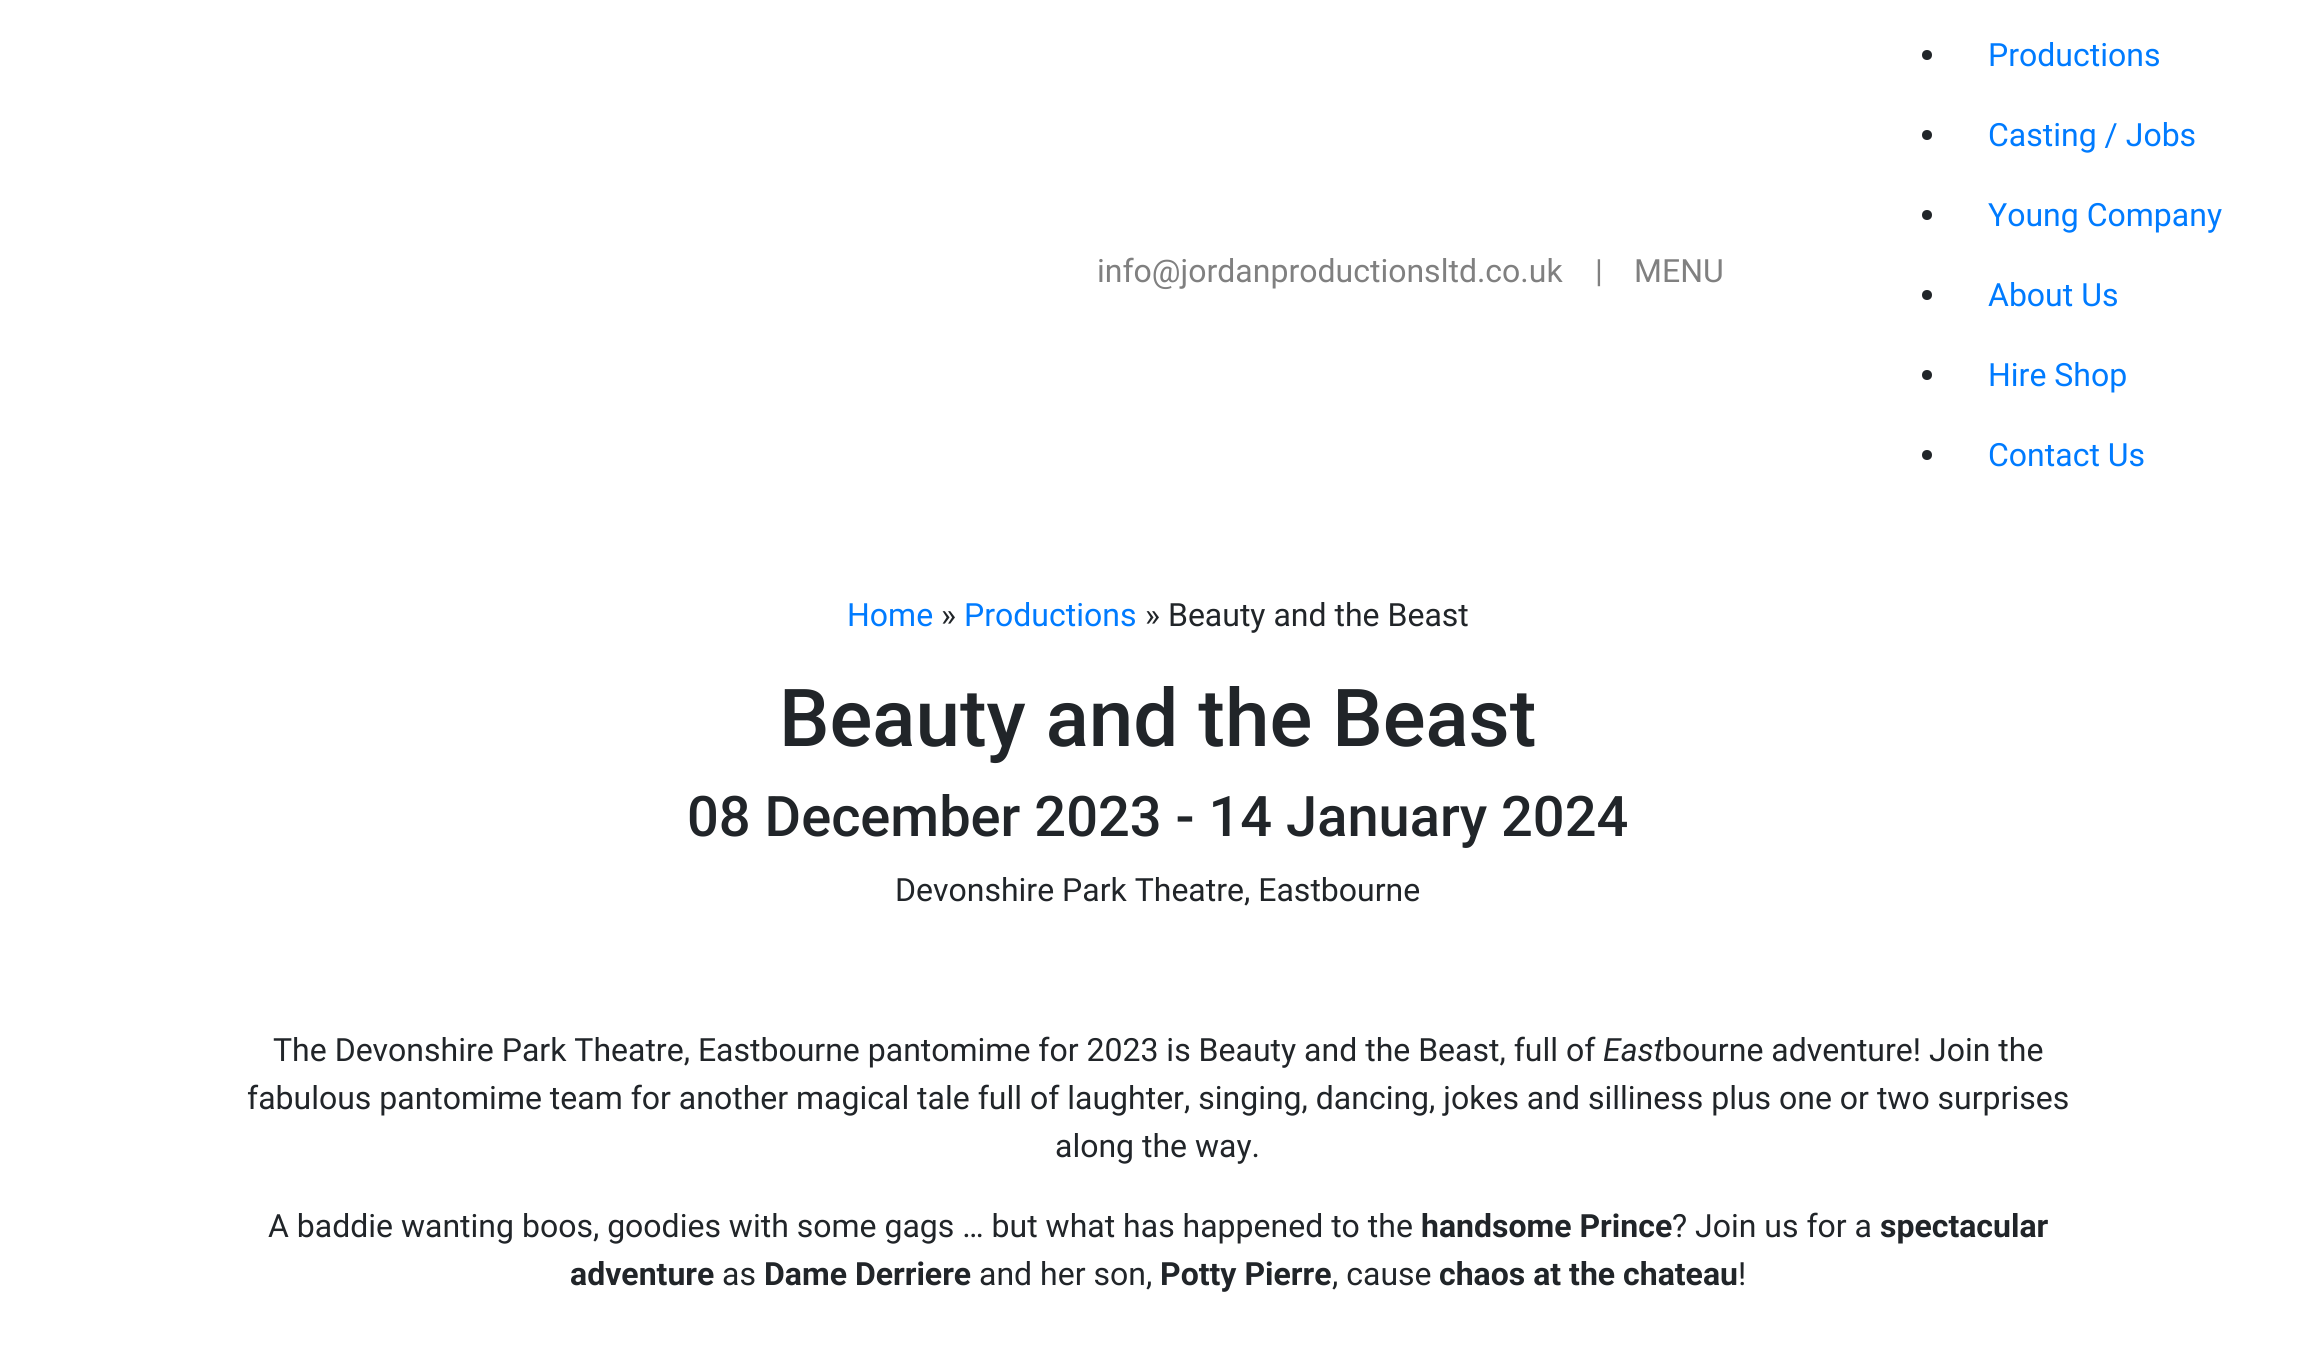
#include <cairo.h>
#include <math.h>
#include <stddef.h>


static void rgb(cairo_t *cr, int r, int g, int b)
{
	cairo_set_source_rgb(cr, r / 255.0, g / 255.0, b / 255.0);
}

static void face(cairo_t *cr, const char *family, double size, int italic, int bold)
{
	cairo_select_font_face(cr, family, italic ? CAIRO_FONT_SLANT_ITALIC : CAIRO_FONT_SLANT_NORMAL,
		bold ? CAIRO_FONT_WEIGHT_BOLD : CAIRO_FONT_WEIGHT_NORMAL);
	cairo_set_font_size(cr, size);
}

static void label(cairo_t *cr, double x, double y, const char *s)
{
	cairo_move_to(cr, x, y);
	cairo_show_text(cr, s);
}

static void draw(cairo_t *cr) {
	rgb(cr, 255, 255, 255);
	cairo_paint(cr);
	face(cr, "Roboto", 32, 0, 0);
	rgb(cr, 128, 128, 128);
	label(cr, 1097, 282, "info@jordanproductionsltd.co.uk");
	label(cr, 1595, 282, "|");
	label(cr, 1634, 282, "MENU");
	rgb(cr, 33, 37, 41);
	cairo_new_path(cr);
	cairo_arc(cr, 1927, 55, 5, 0, 2 * M_PI);
	cairo_fill(cr);
	rgb(cr, 0, 123, 255);
	label(cr, 1988, 66, "Productions");
	rgb(cr, 33, 37, 41);
	cairo_new_path(cr);
	cairo_arc(cr, 1927, 135, 5, 0, 2 * M_PI);
	cairo_fill(cr);
	rgb(cr, 0, 123, 255);
	label(cr, 1988, 146, "Casting / Jobs");
	rgb(cr, 33, 37, 41);
	cairo_new_path(cr);
	cairo_arc(cr, 1927, 215, 5, 0, 2 * M_PI);
	cairo_fill(cr);
	rgb(cr, 0, 123, 255);
	label(cr, 1988, 226, "Young Company");
	rgb(cr, 33, 37, 41);
	cairo_new_path(cr);
	cairo_arc(cr, 1927, 295, 5, 0, 2 * M_PI);
	cairo_fill(cr);
	rgb(cr, 0, 123, 255);
	label(cr, 1988, 306, "About Us");
	rgb(cr, 33, 37, 41);
	cairo_new_path(cr);
	cairo_arc(cr, 1927, 375, 5, 0, 2 * M_PI);
	cairo_fill(cr);
	rgb(cr, 0, 123, 255);
	label(cr, 1988, 386, "Hire Shop");
	rgb(cr, 33, 37, 41);
	cairo_new_path(cr);
	cairo_arc(cr, 1927, 455, 5, 0, 2 * M_PI);
	cairo_fill(cr);
	rgb(cr, 0, 123, 255);
	label(cr, 1988, 466, "Contact Us");
	label(cr, 847, 626, "Home");
	rgb(cr, 33, 37, 41);
	label(cr, 941, 626, "»");
	rgb(cr, 0, 123, 255);
	label(cr, 964, 626, "Productions");
	rgb(cr, 33, 37, 41);
	label(cr, 1145, 626, "» Beauty and the Beast");
	face(cr, "Roboto Medium", 80, 0, 0);
	label(cr, 779, 746, "Beauty and the Beast");
	face(cr, "Roboto Medium", 56, 0, 0);
	label(cr, 687, 836, "08 December 2023 - 14 January 2024");
	face(cr, "Roboto", 32, 0, 0);
	label(cr, 895, 901, "Devonshire Park Theatre, Eastbourne");
	label(cr, 273, 1061, "The Devonshire Park Theatre, Eastbourne pantomime for 2023 is Beauty and the Beast, full of");
	face(cr, "Roboto", 32, 1, 0);
	label(cr, 1603, 1061, "East");
	face(cr, "Roboto", 32, 0, 0);
	label(cr, 1664, 1061, "bourne adventure! Join the");
	label(cr, 247, 1109, "fabulous pantomime team for another magical tale full of laughter, singing, dancing, jokes and silliness plus one or two surprises");
	label(cr, 1055, 1157, "along the way.");
	label(cr, 268, 1237, "A baddie wanting boos, goodies with some gags … but what has happened to the");
	face(cr, "Roboto", 32, 0, 1);
	label(cr, 1421, 1237, "handsome Prince");
	face(cr, "Roboto", 32, 0, 0);
	label(cr, 1672, 1237, "? Join us for a");
	face(cr, "Roboto", 32, 0, 1);
	label(cr, 1880, 1237, "spectacular");
	label(cr, 570, 1285, "adventure");
	face(cr, "Roboto", 32, 0, 0);
	label(cr, 722, 1285, "as");
	face(cr, "Roboto", 32, 0, 1);
	label(cr, 764, 1285, "Dame Derriere");
	face(cr, "Roboto", 32, 0, 0);
	label(cr, 979, 1285, "and her son,");
	face(cr, "Roboto", 32, 0, 1);
	label(cr, 1160, 1285, "Potty Pierre");
	face(cr, "Roboto", 32, 0, 0);
	label(cr, 1332, 1285, ", cause");
	face(cr, "Roboto", 32, 0, 1);
	label(cr, 1439, 1285, "chaos at the chateau");
	face(cr, "Roboto", 32, 0, 0);
	label(cr, 1738, 1285, "!");
}

int main(void) {
	cairo_surface_t *surface = cairo_image_surface_create(CAIRO_FORMAT_RGB24, 2315, 1345);
	cairo_t *cr = cairo_create(surface);
	cairo_font_options_t *options = cairo_font_options_create();
	cairo_font_options_set_hint_metrics(options, CAIRO_HINT_METRICS_OFF);
	cairo_font_options_set_hint_style(options, CAIRO_HINT_STYLE_NONE);
	cairo_set_font_options(cr, options);
	cairo_set_miter_limit(cr, 4);
	draw(cr);
	cairo_surface_write_to_png(surface, "render.png");
	cairo_font_options_destroy(options);
	cairo_destroy(cr);
	cairo_surface_destroy(surface);
	return 0;
}
